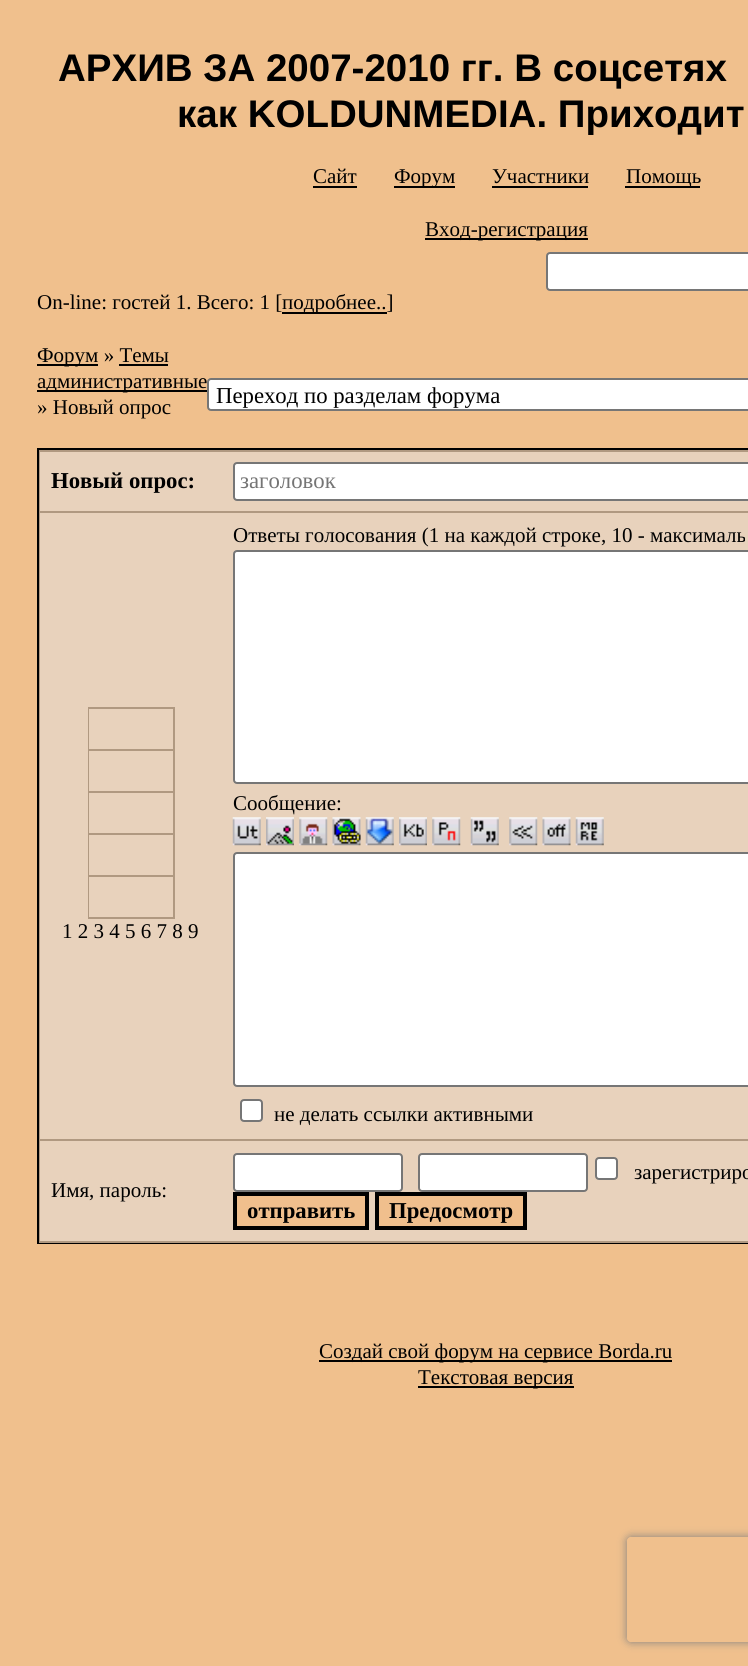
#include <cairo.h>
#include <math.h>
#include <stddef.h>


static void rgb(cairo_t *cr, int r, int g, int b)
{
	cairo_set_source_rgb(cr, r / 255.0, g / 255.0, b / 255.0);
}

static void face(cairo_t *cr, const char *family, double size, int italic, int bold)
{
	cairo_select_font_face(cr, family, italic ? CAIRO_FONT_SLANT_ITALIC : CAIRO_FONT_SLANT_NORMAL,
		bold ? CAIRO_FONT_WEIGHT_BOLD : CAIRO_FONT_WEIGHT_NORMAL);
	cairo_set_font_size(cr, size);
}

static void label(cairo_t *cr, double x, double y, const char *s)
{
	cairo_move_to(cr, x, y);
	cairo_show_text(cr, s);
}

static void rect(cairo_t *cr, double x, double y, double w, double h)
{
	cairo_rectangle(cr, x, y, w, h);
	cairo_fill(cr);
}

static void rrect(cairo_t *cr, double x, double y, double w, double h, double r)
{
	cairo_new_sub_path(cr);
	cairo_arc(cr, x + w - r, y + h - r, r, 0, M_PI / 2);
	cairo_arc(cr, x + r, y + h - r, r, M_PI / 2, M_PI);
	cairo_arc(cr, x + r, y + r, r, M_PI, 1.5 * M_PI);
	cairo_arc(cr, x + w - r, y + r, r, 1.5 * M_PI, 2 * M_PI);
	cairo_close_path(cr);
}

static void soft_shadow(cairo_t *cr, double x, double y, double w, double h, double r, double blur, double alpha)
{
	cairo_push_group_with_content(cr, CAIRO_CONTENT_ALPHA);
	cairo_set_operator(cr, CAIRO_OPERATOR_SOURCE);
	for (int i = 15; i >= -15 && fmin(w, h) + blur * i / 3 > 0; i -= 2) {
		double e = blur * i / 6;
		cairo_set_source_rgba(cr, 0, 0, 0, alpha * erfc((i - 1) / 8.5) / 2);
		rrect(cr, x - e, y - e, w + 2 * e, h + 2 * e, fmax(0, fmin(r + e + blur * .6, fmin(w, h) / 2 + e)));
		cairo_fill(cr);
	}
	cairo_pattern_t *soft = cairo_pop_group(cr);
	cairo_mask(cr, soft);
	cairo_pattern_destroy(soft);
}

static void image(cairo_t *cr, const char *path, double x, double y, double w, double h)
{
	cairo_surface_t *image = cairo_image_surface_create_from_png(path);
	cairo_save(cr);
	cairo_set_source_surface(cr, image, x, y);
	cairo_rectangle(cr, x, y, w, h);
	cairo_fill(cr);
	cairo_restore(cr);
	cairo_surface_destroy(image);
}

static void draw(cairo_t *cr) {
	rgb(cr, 240, 192, 141);
	cairo_paint(cr);
	face(cr, "Liberation Sans", 38.5, 0, 1);
	rgb(cr, 0, 0, 0);
	label(cr, 58, 81, "АРХИВ ЗА 2007-2010 гг. В соцсетях");
	label(cr, 177, 127, "как KOLDUNMEDIA. Приходит");
	face(cr, "Liberation Serif", 21, 0, 0);
	label(cr, 313, 183, "Сайт");
	rect(cr, 313, 186, 44, 2);
	rect(cr, 394, 186, 61, 2);
	label(cr, 394, 183, "Форум");
	label(cr, 492, 183, "Участники");
	rect(cr, 492, 186, 96, 2);
	rect(cr, 625, 186, 75, 2);
	label(cr, 626, 183, "Помощь");
	rect(cr, 425, 238, 163, 2);
	label(cr, 425, 236, "Вход-регистрация");
	rgb(cr, 255, 255, 255);
	rrect(cr, 547, 253, 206, 37, 3);
	cairo_fill_preserve(cr);
	rgb(cr, 118, 118, 118);
	cairo_stroke(cr);
	rgb(cr, 0, 0, 0);
	label(cr, 37, 309, "On-line: гостей 1. Всего: 1 [");
	rect(cr, 282, 312, 105, 2);
	label(cr, 282, 309, "подробнее..]");
	rect(cr, 37, 364, 61, 2);
	label(cr, 37, 362, "Форум » Темы");
	rect(cr, 37, 390, 170, 2);
	label(cr, 37, 388, "административные");
	rect(cr, 119, 364, 49, 2);
	label(cr, 37, 414, "» Новый опрос");
	rgb(cr, 255, 255, 255);
	rrect(cr, 208, 379, 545, 31, 3);
	cairo_fill_preserve(cr);
	rgb(cr, 118, 118, 118);
	cairo_stroke(cr);
	face(cr, "Liberation Serif", 22.75, 0, 0);
	rgb(cr, 0, 0, 0);
	label(cr, 216, 403, "Переход по разделам форума");
	rect(cr, 37, 448, 711, 796);
	rgb(cr, 176, 153, 129);
	rect(cr, 39, 450, 709, 793);
	rgb(cr, 232, 210, 188);
	rect(cr, 40, 452, 708, 59);
	face(cr, "Liberation Serif", 22.75, 0, 1);
	rgb(cr, 0, 0, 0);
	label(cr, 51, 488, "Новый опрос:");
	rgb(cr, 255, 255, 255);
	rrect(cr, 234, 463, 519, 37, 3);
	cairo_fill_preserve(cr);
	rgb(cr, 118, 118, 118);
	cairo_stroke(cr);
	face(cr, "Liberation Serif", 22.75, 0, 0);
	rgb(cr, 117, 117, 117);
	label(cr, 240, 488, "заголовок");
	rgb(cr, 232, 210, 188);
	rect(cr, 40, 513, 708, 626);
	rgb(cr, 176, 153, 129);
	rect(cr, 88, 707, 87, 212);
	rgb(cr, 232, 210, 188);
	rect(cr, 89, 709, 84, 40);
	rect(cr, 89, 751, 84, 40);
	rect(cr, 89, 793, 84, 40);
	rect(cr, 89, 835, 84, 40);
	rect(cr, 89, 877, 84, 40);
	face(cr, "Liberation Serif", 21, 0, 0);
	rgb(cr, 0, 0, 0);
	label(cr, 62, 938, "1 2 3 4 5 6 7 8 9");
	label(cr, 233, 542, "Ответы голосования (1 на каждой строке, 10 - максималь");
	rgb(cr, 255, 255, 255);
	rrect(cr, 234, 551, 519, 232, 3);
	cairo_fill_preserve(cr);
	rgb(cr, 118, 118, 118);
	cairo_stroke(cr);
	rgb(cr, 0, 0, 0);
	label(cr, 233, 810, "Сообщение:");
	image(cr, "image0.png", 232, 817, 29, 29);
	image(cr, "image1.png", 266, 817, 28, 29);
	image(cr, "image2.png", 299, 817, 29, 29);
	image(cr, "image3.png", 332, 817, 29, 29);
	image(cr, "image4.png", 365, 817, 29, 29);
	image(cr, "image5.png", 399, 817, 28, 29);
	image(cr, "image6.png", 432, 817, 29, 29);
	image(cr, "image7.png", 470, 817, 29, 29);
	image(cr, "image8.png", 509, 817, 29, 29);
	image(cr, "image9.png", 542, 817, 29, 29);
	image(cr, "image10.png", 575, 817, 29, 29);
	rgb(cr, 255, 255, 255);
	rrect(cr, 234, 853, 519, 233, 3);
	cairo_fill_preserve(cr);
	rgb(cr, 118, 118, 118);
	cairo_stroke(cr);
	rgb(cr, 255, 255, 255);
	rrect(cr, 241, 1100, 21, 21, 3);
	cairo_fill_preserve(cr);
	rgb(cr, 118, 118, 118);
	cairo_stroke(cr);
	rgb(cr, 0, 0, 0);
	label(cr, 274, 1121, "не делать ссылки активными");
	rgb(cr, 232, 210, 188);
	rect(cr, 40, 1141, 708, 100);
	rgb(cr, 0, 0, 0);
	label(cr, 51, 1197, "Имя, пароль:");
	rgb(cr, 255, 255, 255);
	rrect(cr, 234, 1154, 168, 37, 3);
	cairo_fill_preserve(cr);
	rgb(cr, 118, 118, 118);
	cairo_stroke(cr);
	rgb(cr, 255, 255, 255);
	rrect(cr, 419, 1154, 168, 37, 3);
	cairo_fill_preserve(cr);
	rgb(cr, 118, 118, 118);
	cairo_stroke(cr);
	rgb(cr, 255, 255, 255);
	rrect(cr, 596, 1158, 21, 21, 3);
	cairo_fill_preserve(cr);
	rgb(cr, 118, 118, 118);
	cairo_stroke(cr);
	rgb(cr, 0, 0, 0);
	label(cr, 634, 1179, "зарегистриро");
	rgb(cr, 240, 191, 141);
	cairo_rectangle(cr, 235, 1194, 132, 34);
	cairo_fill_preserve(cr);
	rgb(cr, 0, 0, 0);
	cairo_set_line_width(cr, 4);
	cairo_stroke(cr);
	face(cr, "Liberation Serif", 22.75, 0, 1);
	label(cr, 247, 1218, "отправить");
	rgb(cr, 240, 191, 141);
	cairo_rectangle(cr, 377, 1194, 148, 34);
	cairo_fill_preserve(cr);
	rgb(cr, 0, 0, 0);
	cairo_stroke(cr);
	label(cr, 389, 1218, "Предосмотр");
	rect(cr, 319, 1360, 353, 2);
	face(cr, "Liberation Serif", 21, 0, 0);
	label(cr, 319, 1358, "Создай свой форум на сервисе Borda.ru");
	rect(cr, 418, 1386, 156, 2);
	label(cr, 418, 1384, "Текстовая версия");
	cairo_save(cr);
	cairo_set_fill_rule(cr, CAIRO_FILL_RULE_EVEN_ODD);
	cairo_new_path(cr);
	cairo_move_to(cr, 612, 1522);
	cairo_line_to(cr, 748, 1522);
	cairo_line_to(cr, 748, 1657);
	cairo_line_to(cr, 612, 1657);
	cairo_close_path(cr);
	cairo_move_to(cr, 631, 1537);
	cairo_line_to(cr, 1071, 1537);
	cairo_curve_to(cr, 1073, 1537, 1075, 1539, 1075, 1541);
	cairo_line_to(cr, 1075, 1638);
	cairo_curve_to(cr, 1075, 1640, 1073, 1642, 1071, 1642);
	cairo_line_to(cr, 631, 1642);
	cairo_curve_to(cr, 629, 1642, 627, 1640, 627, 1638);
	cairo_line_to(cr, 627, 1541);
	cairo_curve_to(cr, 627, 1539, 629, 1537, 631, 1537);
	cairo_close_path(cr);
	cairo_clip(cr);
	rgb(cr, 128, 128, 128);
	soft_shadow(cr, 627, 1537, 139, 105, 4, 4.5, 1);
	cairo_restore(cr);
}

int main(void) {
	cairo_surface_t *surface = cairo_image_surface_create(CAIRO_FORMAT_RGB24, 748, 1666);
	cairo_t *cr = cairo_create(surface);
	cairo_font_options_t *options = cairo_font_options_create();
	cairo_font_options_set_hint_metrics(options, CAIRO_HINT_METRICS_OFF);
	cairo_font_options_set_hint_style(options, CAIRO_HINT_STYLE_NONE);
	cairo_set_font_options(cr, options);
	cairo_set_miter_limit(cr, 4);
	draw(cr);
	cairo_surface_write_to_png(surface, "render.png");
	cairo_font_options_destroy(options);
	cairo_destroy(cr);
	cairo_surface_destroy(surface);
	return 0;
}
